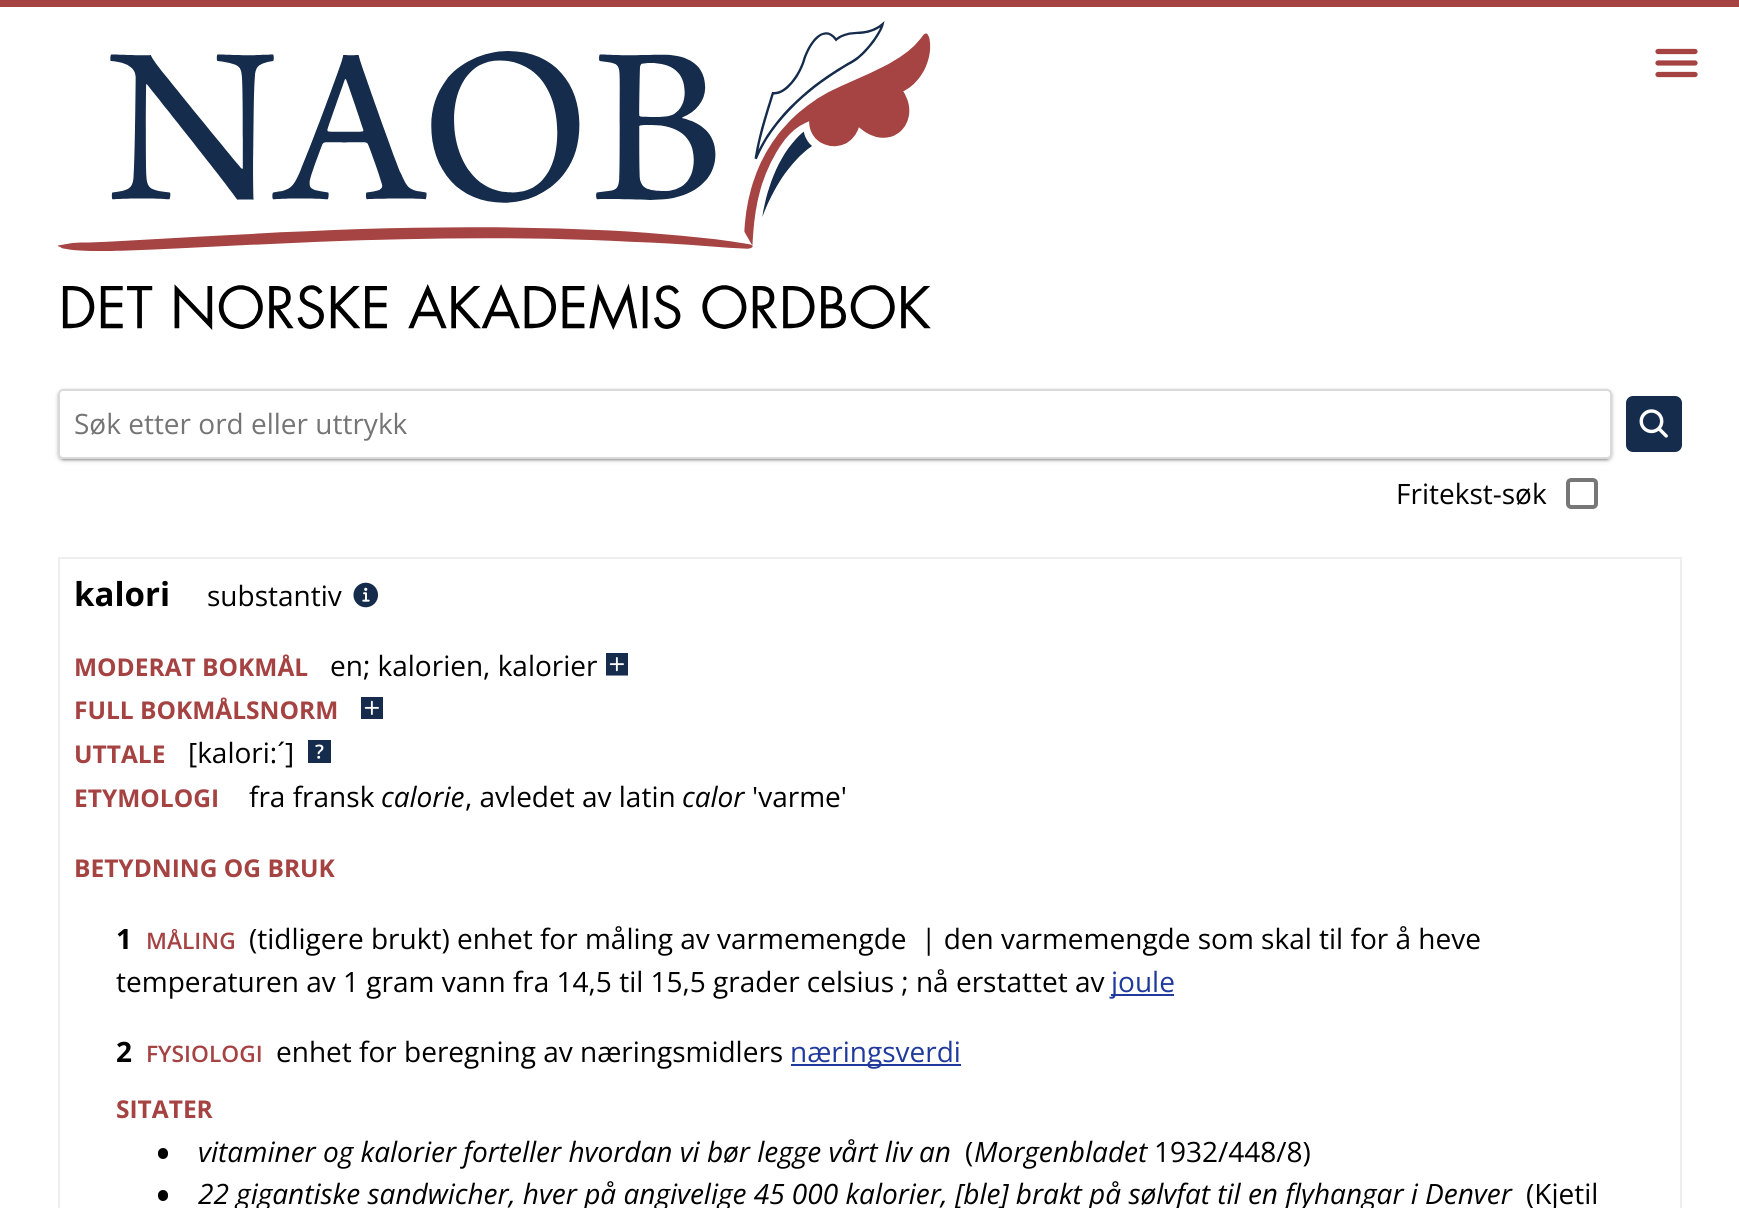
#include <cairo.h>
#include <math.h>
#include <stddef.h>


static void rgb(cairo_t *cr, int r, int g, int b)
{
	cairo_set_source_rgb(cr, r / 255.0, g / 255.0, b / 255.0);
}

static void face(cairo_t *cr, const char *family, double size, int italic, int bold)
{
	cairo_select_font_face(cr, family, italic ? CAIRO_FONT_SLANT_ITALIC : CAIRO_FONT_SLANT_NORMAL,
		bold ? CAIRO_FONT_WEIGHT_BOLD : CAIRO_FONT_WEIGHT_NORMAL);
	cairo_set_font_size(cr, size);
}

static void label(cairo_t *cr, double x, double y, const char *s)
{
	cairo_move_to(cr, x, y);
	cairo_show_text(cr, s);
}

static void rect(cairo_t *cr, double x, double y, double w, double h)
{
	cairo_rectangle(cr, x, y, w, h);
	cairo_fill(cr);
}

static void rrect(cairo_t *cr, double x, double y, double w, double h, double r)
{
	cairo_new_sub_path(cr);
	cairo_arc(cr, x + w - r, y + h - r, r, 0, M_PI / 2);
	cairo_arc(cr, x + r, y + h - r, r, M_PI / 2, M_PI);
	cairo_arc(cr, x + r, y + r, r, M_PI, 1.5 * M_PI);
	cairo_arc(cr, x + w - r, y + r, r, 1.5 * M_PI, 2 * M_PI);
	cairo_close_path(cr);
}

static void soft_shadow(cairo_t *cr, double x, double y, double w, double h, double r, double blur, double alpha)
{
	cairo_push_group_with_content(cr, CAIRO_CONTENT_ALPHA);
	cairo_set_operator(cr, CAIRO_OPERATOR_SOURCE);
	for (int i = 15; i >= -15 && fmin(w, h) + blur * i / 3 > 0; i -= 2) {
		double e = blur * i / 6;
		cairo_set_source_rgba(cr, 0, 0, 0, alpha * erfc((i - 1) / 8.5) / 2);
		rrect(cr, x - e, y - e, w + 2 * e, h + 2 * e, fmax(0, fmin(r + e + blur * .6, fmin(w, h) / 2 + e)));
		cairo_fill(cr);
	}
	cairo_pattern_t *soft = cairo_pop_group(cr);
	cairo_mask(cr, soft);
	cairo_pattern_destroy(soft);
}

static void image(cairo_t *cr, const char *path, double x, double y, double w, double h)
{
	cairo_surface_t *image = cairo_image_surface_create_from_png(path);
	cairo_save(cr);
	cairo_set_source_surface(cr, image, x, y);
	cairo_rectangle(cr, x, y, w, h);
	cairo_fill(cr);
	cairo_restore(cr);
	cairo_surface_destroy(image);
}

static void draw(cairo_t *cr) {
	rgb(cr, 255, 255, 255);
	cairo_paint(cr);
	rgb(cr, 165, 66, 66);
	rect(cr, 0, 0, 1739, 7);
	cairo_new_path(cr);
	cairo_move_to(cr, 1658, 51.5);
	cairo_line_to(cr, 1695, 51.5);
	cairo_move_to(cr, 1658, 63);
	cairo_line_to(cr, 1695, 63);
	cairo_move_to(cr, 1658, 74.5);
	cairo_line_to(cr, 1695, 74.5);
	cairo_set_line_width(cr, 5.2);
	cairo_set_line_cap(cr, CAIRO_LINE_CAP_ROUND);
	cairo_stroke(cr);
	image(cr, "image0.png", 58, 21, 873, 309);
	cairo_save(cr);
	cairo_set_fill_rule(cr, CAIRO_FILL_RULE_EVEN_ODD);
	cairo_new_path(cr);
	cairo_move_to(cr, 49, 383);
	cairo_line_to(cr, 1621, 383);
	cairo_line_to(cr, 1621, 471);
	cairo_line_to(cr, 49, 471);
	cairo_close_path(cr);
	cairo_move_to(cr, 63, 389);
	cairo_line_to(cr, 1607, 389);
	cairo_curve_to(cr, 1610, 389, 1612, 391, 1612, 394);
	cairo_line_to(cr, 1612, 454);
	cairo_curve_to(cr, 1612, 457, 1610, 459, 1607, 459);
	cairo_line_to(cr, 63, 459);
	cairo_curve_to(cr, 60, 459, 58, 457, 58, 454);
	cairo_line_to(cr, 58, 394);
	cairo_curve_to(cr, 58, 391, 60, 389, 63, 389);
	cairo_close_path(cr);
	cairo_clip(cr);
	rgb(cr, 0, 0, 0);
	soft_shadow(cr, 58, 392, 1554, 70, 5, 2.5, 0.06);
	cairo_restore(cr);
	cairo_save(cr);
	cairo_set_fill_rule(cr, CAIRO_FILL_RULE_EVEN_ODD);
	cairo_new_path(cr);
	cairo_move_to(cr, 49, 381);
	cairo_line_to(cr, 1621, 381);
	cairo_line_to(cr, 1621, 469);
	cairo_line_to(cr, 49, 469);
	cairo_close_path(cr);
	cairo_move_to(cr, 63, 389);
	cairo_line_to(cr, 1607, 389);
	cairo_curve_to(cr, 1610, 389, 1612, 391, 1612, 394);
	cairo_line_to(cr, 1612, 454);
	cairo_curve_to(cr, 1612, 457, 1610, 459, 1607, 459);
	cairo_line_to(cr, 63, 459);
	cairo_curve_to(cr, 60, 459, 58, 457, 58, 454);
	cairo_line_to(cr, 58, 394);
	cairo_curve_to(cr, 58, 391, 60, 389, 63, 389);
	cairo_close_path(cr);
	cairo_clip(cr);
	rgb(cr, 0, 0, 0);
	soft_shadow(cr, 58, 390, 1554, 70, 5, 2.5, 0.12);
	cairo_restore(cr);
	cairo_save(cr);
	cairo_set_fill_rule(cr, CAIRO_FILL_RULE_EVEN_ODD);
	cairo_new_path(cr);
	cairo_move_to(cr, 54, 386);
	cairo_line_to(cr, 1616, 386);
	cairo_line_to(cr, 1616, 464);
	cairo_line_to(cr, 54, 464);
	cairo_close_path(cr);
	cairo_move_to(cr, 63, 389);
	cairo_line_to(cr, 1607, 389);
	cairo_curve_to(cr, 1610, 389, 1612, 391, 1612, 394);
	cairo_line_to(cr, 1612, 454);
	cairo_curve_to(cr, 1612, 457, 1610, 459, 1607, 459);
	cairo_line_to(cr, 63, 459);
	cairo_curve_to(cr, 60, 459, 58, 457, 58, 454);
	cairo_line_to(cr, 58, 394);
	cairo_curve_to(cr, 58, 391, 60, 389, 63, 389);
	cairo_close_path(cr);
	cairo_clip(cr);
	rgb(cr, 0, 0, 0);
	soft_shadow(cr, 58, 390, 1554, 70, 5, 1, 0.14);
	cairo_restore(cr);
	cairo_save(cr);
	cairo_set_fill_rule(cr, CAIRO_FILL_RULE_EVEN_ODD);
	cairo_new_path(cr);
	cairo_move_to(cr, 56, 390);
	cairo_line_to(cr, 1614, 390);
	cairo_line_to(cr, 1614, 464);
	cairo_line_to(cr, 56, 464);
	cairo_close_path(cr);
	cairo_move_to(cr, 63, 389);
	cairo_line_to(cr, 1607, 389);
	cairo_curve_to(cr, 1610, 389, 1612, 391, 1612, 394);
	cairo_line_to(cr, 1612, 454);
	cairo_curve_to(cr, 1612, 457, 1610, 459, 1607, 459);
	cairo_line_to(cr, 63, 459);
	cairo_curve_to(cr, 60, 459, 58, 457, 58, 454);
	cairo_line_to(cr, 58, 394);
	cairo_curve_to(cr, 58, 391, 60, 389, 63, 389);
	cairo_close_path(cr);
	cairo_clip(cr);
	rgb(cr, 0, 0, 0);
	soft_shadow(cr, 60, 394, 1550, 66, 4, 1, 0.2);
	cairo_restore(cr);
	rrect(cr, 59, 390, 1552, 68, 4);
	cairo_set_source_rgba(cr, 0, 0, 0, 0.15);
	cairo_set_line_width(cr, 2);
	cairo_set_line_cap(cr, CAIRO_LINE_CAP_BUTT);
	cairo_stroke(cr);
	face(cr, "Open Sans", 28, 0, 0);
	rgb(cr, 117, 117, 117);
	label(cr, 74, 434, "Søk etter ord eller uttrykk");
	rgb(cr, 21, 44, 76);
	rrect(cr, 1626, 396, 56, 56, 7);
	cairo_fill(cr);
	image(cr, "image1.png", 1639, 409, 29, 29);
	rgb(cr, 0, 0, 0);
	label(cr, 1396, 504, "Fritekst-søk");
	rrect(cr, 1568, 480, 28, 27, 3);
	rgb(cr, 119, 119, 119);
	cairo_set_line_width(cr, 4);
	cairo_stroke(cr);
	cairo_rectangle(cr, 59, 558, 1622, 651);
	rgb(cr, 238, 238, 238);
	cairo_set_line_width(cr, 2);
	cairo_stroke(cr);
	face(cr, "Open Sans", 33, 0, 1);
	rgb(cr, 0, 0, 0);
	label(cr, 74, 606, "kalori");
	face(cr, "Open Sans", 28, 0, 0);
	label(cr, 207, 606, "substantiv");
	image(cr, "image2.png", 353, 582, 25, 26);
	face(cr, "Open Sans", 24.5, 0, 1);
	rgb(cr, 165, 66, 66);
	label(cr, 74, 676, "MODERAT BOKMÅL");
	face(cr, "Open Sans", 28, 0, 0);
	rgb(cr, 0, 0, 0);
	label(cr, 330, 676, "en; kalorien, kalorier");
	image(cr, "image3.png", 606, 653, 22, 23);
	face(cr, "Open Sans", 24.5, 0, 1);
	rgb(cr, 165, 66, 66);
	label(cr, 74, 719, "FULL BOKMÅLSNORM");
	image(cr, "image4.png", 361, 697, 22, 22);
	label(cr, 74, 763, "UTTALE");
	face(cr, "Open Sans", 28, 0, 0);
	rgb(cr, 0, 0, 0);
	label(cr, 188, 763, "[kalori:´]");
	image(cr, "image5.png", 308, 740, 23, 23);
	face(cr, "Open Sans", 24.5, 0, 1);
	rgb(cr, 165, 66, 66);
	label(cr, 74, 807, "ETYMOLOGI");
	face(cr, "Open Sans", 28, 0, 0);
	rgb(cr, 0, 0, 0);
	label(cr, 249, 807, "fra fransk");
	face(cr, "Open Sans", 28, 1, 0);
	label(cr, 381, 807, "calorie");
	face(cr, "Open Sans", 28, 0, 0);
	label(cr, 465, 807, ", avledet av latin");
	face(cr, "Open Sans", 28, 1, 0);
	label(cr, 682, 807, "calor");
	face(cr, "Open Sans", 28, 0, 0);
	label(cr, 752, 807, "'varme'");
	face(cr, "Open Sans", 24.5, 0, 1);
	rgb(cr, 165, 66, 66);
	label(cr, 74, 877, "BETYDNING OG BRUK");
	face(cr, "Open Sans", 28, 0, 1);
	rgb(cr, 0, 0, 0);
	label(cr, 116, 949, "1");
	face(cr, "Open Sans SemiBold", 22.75, 0, 0);
	rgb(cr, 165, 66, 66);
	label(cr, 146, 949, "MÅLING");
	face(cr, "Open Sans", 28, 0, 0);
	rgb(cr, 0, 0, 0);
	label(cr, 249, 949, "(tidligere brukt) enhet for måling av varmemengde");
	label(cr, 921, 949, "| den varmemengde som skal til for å heve");
	label(cr, 116, 992, "temperaturen av 1 gram vann fra 14,5 til 15,5 grader celsius ; nå erstattet av");
	rgb(cr, 32, 57, 157);
	rect(cr, 1111, 994, 63, 2);
	label(cr, 1111, 992, "joule");
	face(cr, "Open Sans", 28, 0, 1);
	rgb(cr, 0, 0, 0);
	label(cr, 116, 1062, "2");
	face(cr, "Open Sans SemiBold", 22.75, 0, 0);
	rgb(cr, 165, 66, 66);
	label(cr, 146, 1062, "FYSIOLOGI");
	face(cr, "Open Sans", 28, 0, 0);
	rgb(cr, 0, 0, 0);
	label(cr, 276, 1062, "enhet for beregning av næringsmidlers");
	rgb(cr, 32, 57, 157);
	rect(cr, 791, 1064, 170, 2);
	label(cr, 790, 1062, "næringsverdi");
	face(cr, "Open Sans", 24.5, 0, 1);
	rgb(cr, 165, 66, 66);
	label(cr, 116, 1118, "SITATER");
	rgb(cr, 0, 0, 0);
	rrect(cr, 158, 1148, 10, 11, 5);
	cairo_fill(cr);
	face(cr, "Open Sans", 28, 1, 0);
	label(cr, 198, 1162, "vitaminer og kalorier forteller hvordan vi bør legge vårt liv an");
	face(cr, "Open Sans", 28, 0, 0);
	label(cr, 965, 1162, "(");
	face(cr, "Open Sans", 28, 1, 0);
	label(cr, 974, 1162, "Morgenbladet");
	face(cr, "Open Sans", 28, 0, 0);
	label(cr, 1154, 1162, "1932/448/8)");
	rrect(cr, 158, 1190, 10, 11, 5);
	cairo_fill(cr);
	face(cr, "Open Sans", 28, 1, 0);
	label(cr, 198, 1204, "22 gigantiske sandwicher, hver på angivelige 45 000 kalorier, [ble] brakt på sølvfat til en flyhangar i Denver");
	face(cr, "Open Sans", 28, 0, 0);
	label(cr, 1526, 1204, "(Kjetil");
}

int main(void) {
	cairo_surface_t *surface = cairo_image_surface_create(CAIRO_FORMAT_RGB24, 1739, 1208);
	cairo_t *cr = cairo_create(surface);
	cairo_font_options_t *options = cairo_font_options_create();
	cairo_font_options_set_hint_metrics(options, CAIRO_HINT_METRICS_OFF);
	cairo_font_options_set_hint_style(options, CAIRO_HINT_STYLE_NONE);
	cairo_set_font_options(cr, options);
	cairo_set_miter_limit(cr, 4);
	draw(cr);
	cairo_surface_write_to_png(surface, "render.png");
	cairo_font_options_destroy(options);
	cairo_destroy(cr);
	cairo_surface_destroy(surface);
	return 0;
}
